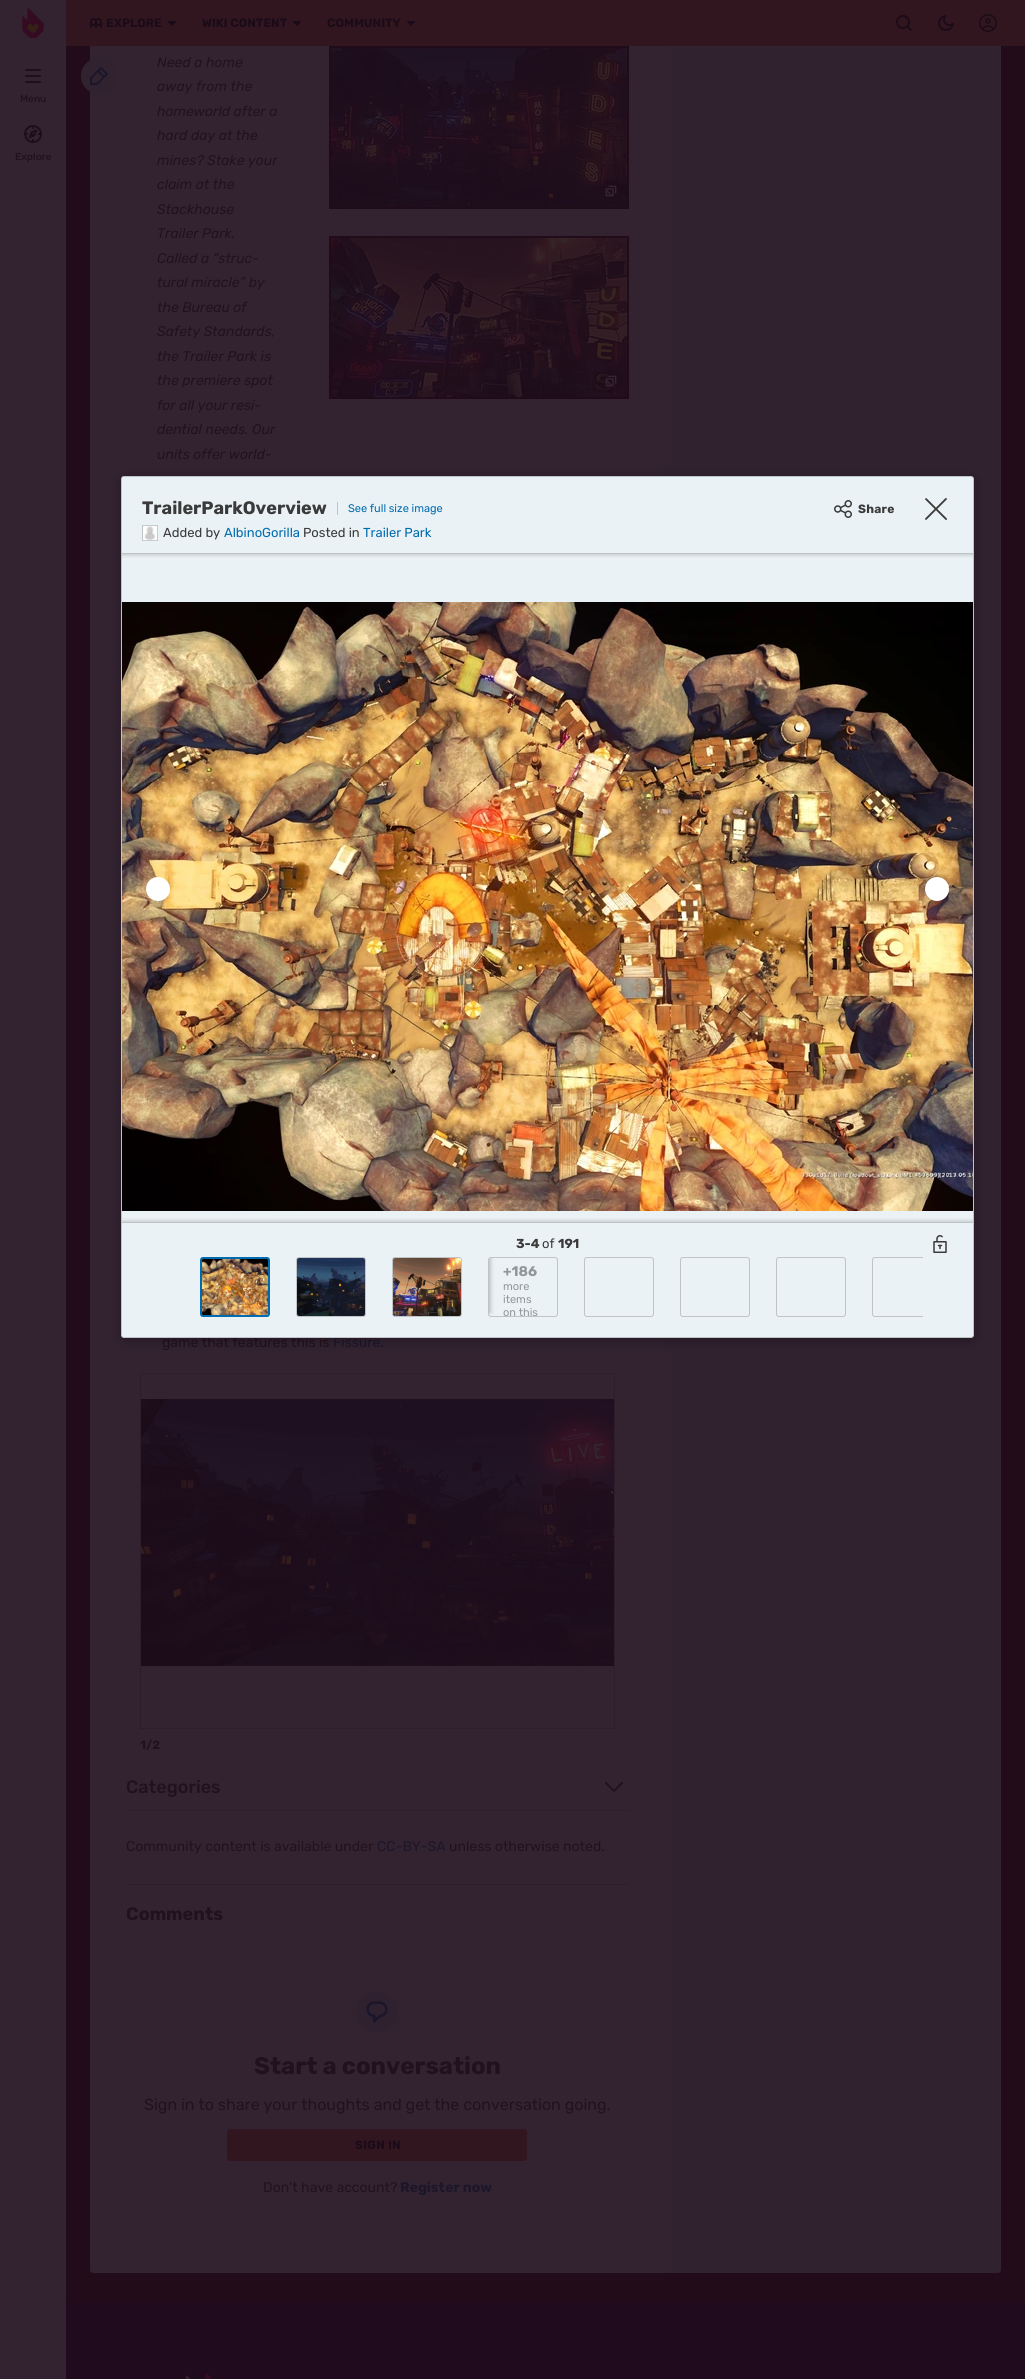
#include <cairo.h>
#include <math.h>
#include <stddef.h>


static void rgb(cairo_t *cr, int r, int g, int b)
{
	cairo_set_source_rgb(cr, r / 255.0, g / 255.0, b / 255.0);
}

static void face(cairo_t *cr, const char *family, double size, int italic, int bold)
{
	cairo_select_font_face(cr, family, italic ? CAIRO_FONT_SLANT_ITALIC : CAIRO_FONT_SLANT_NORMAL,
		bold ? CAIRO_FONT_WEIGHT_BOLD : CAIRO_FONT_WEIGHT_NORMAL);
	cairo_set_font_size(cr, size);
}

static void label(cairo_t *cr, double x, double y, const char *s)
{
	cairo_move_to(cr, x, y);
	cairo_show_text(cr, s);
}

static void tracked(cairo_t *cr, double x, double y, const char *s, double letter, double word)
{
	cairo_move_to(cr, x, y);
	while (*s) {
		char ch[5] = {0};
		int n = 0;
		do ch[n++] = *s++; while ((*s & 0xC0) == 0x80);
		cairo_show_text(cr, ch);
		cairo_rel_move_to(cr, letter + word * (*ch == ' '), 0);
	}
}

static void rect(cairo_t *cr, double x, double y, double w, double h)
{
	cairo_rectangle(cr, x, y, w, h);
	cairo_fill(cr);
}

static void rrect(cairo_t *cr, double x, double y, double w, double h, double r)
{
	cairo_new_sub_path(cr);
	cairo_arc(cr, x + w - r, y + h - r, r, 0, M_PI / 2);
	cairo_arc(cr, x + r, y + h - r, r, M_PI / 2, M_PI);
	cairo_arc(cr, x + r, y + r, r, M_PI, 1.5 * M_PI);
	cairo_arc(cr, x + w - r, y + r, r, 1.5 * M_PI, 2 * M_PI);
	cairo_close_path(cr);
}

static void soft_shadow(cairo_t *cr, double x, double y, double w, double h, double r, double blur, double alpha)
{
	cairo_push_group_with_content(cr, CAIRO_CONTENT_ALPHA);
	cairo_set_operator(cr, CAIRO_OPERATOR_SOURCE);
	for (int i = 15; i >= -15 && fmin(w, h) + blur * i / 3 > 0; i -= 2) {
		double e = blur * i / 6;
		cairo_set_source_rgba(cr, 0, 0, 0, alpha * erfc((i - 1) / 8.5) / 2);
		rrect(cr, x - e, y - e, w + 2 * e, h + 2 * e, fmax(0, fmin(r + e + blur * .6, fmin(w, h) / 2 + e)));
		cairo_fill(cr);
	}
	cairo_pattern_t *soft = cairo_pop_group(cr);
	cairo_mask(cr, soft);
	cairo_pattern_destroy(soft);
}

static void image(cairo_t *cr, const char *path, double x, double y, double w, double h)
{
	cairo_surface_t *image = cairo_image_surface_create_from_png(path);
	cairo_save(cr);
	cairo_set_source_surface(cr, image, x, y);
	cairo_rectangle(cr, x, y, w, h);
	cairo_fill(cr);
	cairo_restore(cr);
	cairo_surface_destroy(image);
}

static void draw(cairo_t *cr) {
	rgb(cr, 34, 12, 25);
	cairo_paint(cr);
	rgb(cr, 51, 35, 49);
	cairo_new_path(cr);
	cairo_move_to(cr, 93, -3);
	cairo_line_to(cr, 665, -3);
	cairo_line_to(cr, 665, 2273);
	cairo_line_to(cr, 93, 2273);
	cairo_curve_to(cr, 91.5, 2273, 90, 2271.5, 90, 2270);
	cairo_line_to(cr, 90, 0);
	cairo_curve_to(cr, 90, -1.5, 91.5, -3, 93, -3);
	cairo_close_path(cr);
	cairo_fill(cr);
	rgb(cr, 49, 34, 48);
	cairo_new_path(cr);
	cairo_move_to(cr, 665, -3);
	cairo_line_to(cr, 998, -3);
	cairo_curve_to(cr, 999.5, -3, 1001, -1.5, 1001, 0);
	cairo_line_to(cr, 1001, 2270);
	cairo_curve_to(cr, 1001, 2271.5, 999.5, 2273, 998, 2273);
	cairo_line_to(cr, 665, 2273);
	cairo_close_path(cr);
	cairo_fill(cr);
	rgb(cr, 50, 22, 31);
	rect(cr, 66, 0, 959, 46);
	rgb(cr, 51, 35, 49);
	rect(cr, 0, 0, 66, 2379);
	image(cr, "image0.png", 22, 8, 22, 30);
	image(cr, "image1.png", 90, 18, 12, 10);
	face(cr, "Rubik", 12, 0, 1);
	rgb(cr, 27, 11, 24);
	label(cr, 106, 27, "EXPLORE");
	image(cr, "image2.png", 168, 21, 8, 5);
	label(cr, 202, 27, "WIKI CONTENT");
	image(cr, "image2.png", 293, 21, 8, 5);
	label(cr, 327, 27, "COMMUNITY");
	image(cr, "image2.png", 407, 21, 8, 5);
	image(cr, "image3.png", 896, 15, 16, 16);
	image(cr, "image4.png", 938, 15, 16, 16);
	image(cr, "image5.png", 979, 14, 18, 18);
	image(cr, "image6.png", 25, 69, 16, 14);
	face(cr, "Rubik Medium", 10, 0, 0);
	rgb(cr, 33, 17, 30);
	label(cr, 20, 102, "Menu");
	image(cr, "image7.png", 24, 125, 18, 18);
	label(cr, 15, 160, "Explore");
	rgb(cr, 49, 34, 48);
	cairo_new_path(cr);
	cairo_arc(cr, 99, 76, 18, 0, 2 * M_PI);
	cairo_fill(cr);
	image(cr, "image8.png", 90, 67, 18, 18);
	face(cr, "Rubik", 14, 1, 0);
	rgb(cr, 33, 17, 30);
	label(cr, 157, 67, "Need a home");
	label(cr, 157, 91, "away from the");
	label(cr, 157, 116, "homeworld after a");
	label(cr, 157, 140, "hard day at the");
	label(cr, 157, 165, "mines? Stake your");
	label(cr, 157, 189, "claim at the");
	label(cr, 157, 214, "Stackhouse");
	label(cr, 157, 238, "Trailer Park.");
	label(cr, 157, 263, "Called a “struc-");
	label(cr, 157, 287, "tural miracle” by");
	label(cr, 157, 312, "the Bureau of");
	label(cr, 157, 336, "Safety Standards,");
	label(cr, 157, 361, "the Trailer Park is");
	label(cr, 157, 385, "the premiere spot");
	label(cr, 157, 410, "for all your resi-");
	label(cr, 157, 434, "dential needs. Our");
	label(cr, 157, 459, "units offer world-");
	image(cr, "image9.png", 329, 46, 300, 163);
	cairo_set_source_rgba(cr, 0.118, 0.047, 0.106, 0.5);
	cairo_arc(cr, 611, 191, 12, 0, 2 * M_PI);
	cairo_fill(cr);
	image(cr, "image10.png", 605, 185, 12, 12);
	image(cr, "image11.png", 329, 236, 300, 163);
	cairo_arc(cr, 611, 381, 12, 0, 2 * M_PI);
	cairo_fill(cr);
	image(cr, "image12.png", 605, 375, 12, 12);
	face(cr, "Rubik", 14, 0, 0);
	rgb(cr, 33, 17, 30);
	label(cr, 162, 1347, "game that features this is");
	rgb(cr, 27, 22, 42);
	label(cr, 333, 1347, "Fissure");
	rgb(cr, 33, 17, 30);
	label(cr, 380, 1347, ".");
	cairo_rectangle(cr, 140.5, 1373.5, 474, 355);
	rgb(cr, 46, 30, 44);
	cairo_set_line_width(cr, 1);
	cairo_stroke(cr);
	image(cr, "image13.png", 141, 1399, 473, 267);
	face(cr, "Rubik", 12, 0, 1);
	rgb(cr, 33, 17, 30);
	label(cr, 140, 1749, "1/2");
	rgb(cr, 46, 30, 44);
	rect(cr, 126, 1810, 503, 1);
	face(cr, "Rubik Medium", 18, 0, 0);
	rgb(cr, 33, 17, 30);
	label(cr, 126, 1793, "Categories");
	image(cr, "image14.png", 605, 1782, 18, 10);
	face(cr, "Rubik", 14, 0, 0);
	label(cr, 126, 1851, "Community content is available under");
	rgb(cr, 27, 22, 42);
	label(cr, 377, 1851, "CC-BY-SA");
	rgb(cr, 33, 17, 30);
	label(cr, 449, 1851, "unless otherwise noted.");
	rgb(cr, 46, 30, 44);
	rect(cr, 126, 1884, 503, 1);
	face(cr, "Rubik", 18, 0, 1);
	rgb(cr, 33, 17, 30);
	label(cr, 126, 1920, "Comments");
	rgb(cr, 47, 33, 47);
	cairo_new_path(cr);
	cairo_arc(cr, 377, 2012, 21, 0, 2 * M_PI);
	cairo_fill(cr);
	image(cr, "image15.png", 366, 2001, 22, 22);
	face(cr, "Rubik", 24, 0, 1);
	rgb(cr, 33, 17, 30);
	label(cr, 254, 2074, "Start a conversation");
	face(cr, "Rubik", 16, 0, 0);
	label(cr, 144, 2110, "Sign in to share your thoughts and get the conversation going.");
	rgb(cr, 50, 22, 31);
	rrect(cr, 227.5, 2129.5, 299, 31, 2.5);
	cairo_fill_preserve(cr);
	cairo_stroke(cr);
	face(cr, "Rubik", 12, 0, 1);
	rgb(cr, 27, 11, 24);
	tracked(cr, 355, 2149, "SIGN IN", 0.25, 0);
	face(cr, "Rubik", 14, 0, 0);
	rgb(cr, 33, 17, 30);
	label(cr, 263, 2192, "Don't have account?");
	face(cr, "Rubik", 14, 0, 1);
	rgb(cr, 27, 22, 42);
	label(cr, 400, 2192, "Register now");
	rgb(cr, 31, 11, 29);
	rect(cr, 66, 2303, 959, 76);
	image(cr, "image16.png", 185, 2373, 28, 6);
	rgb(cr, 0, 0, 0);
	soft_shadow(cr, 121, 479, 853, 862, 3, 6, 0.3);
	rgb(cr, 235, 242, 245);
	rrect(cr, 121.5, 476.5, 852, 861, 2.5);
	cairo_fill_preserve(cr);
	rgb(cr, 191, 196, 198);
	cairo_stroke(cr);
	cairo_save(cr);
	rrect(cr, 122, 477, 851, 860, 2);
	cairo_clip(cr);
	cairo_rectangle(cr, 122, 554, 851, 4);
	cairo_clip(cr);
	rgb(cr, 30, 12, 27);
	soft_shadow(cr, 122, 477, 851, 77, 0, 2.5, 0.3);
	cairo_restore(cr);
	cairo_set_source_rgba(cr, 0.922, 0.949, 0.961, 0.8);
	cairo_new_path(cr);
	cairo_move_to(cr, 124, 477);
	cairo_line_to(cr, 971, 477);
	cairo_curve_to(cr, 972, 477, 973, 478, 973, 479);
	cairo_line_to(cr, 973, 554);
	cairo_line_to(cr, 122, 554);
	cairo_line_to(cr, 122, 479);
	cairo_curve_to(cr, 122, 478, 123, 477, 124, 477);
	cairo_close_path(cr);
	cairo_fill(cr);
	rgb(cr, 191, 196, 198);
	rect(cr, 122, 553, 851, 1);
	face(cr, "Rubik", 18, 0, 1);
	rgb(cr, 58, 58, 58);
	label(cr, 142, 514, "TrailerParkOverview");
	face(cr, "Rubik", 11, 0, 0);
	rgb(cr, 0, 108, 176);
	label(cr, 348, 512, "See full size image");
	rgb(cr, 191, 196, 198);
	rect(cr, 337, 502, 1, 13);
	image(cr, "image17.png", 834, 500, 18, 18);
	face(cr, "Rubik", 12, 0, 1);
	rgb(cr, 58, 58, 58);
	tracked(cr, 858, 513, "Share", 0.25, 0);
	image(cr, "image18.png", 925, 498, 22, 22);
	cairo_rectangle(cr, 142.5, 525.5, 15, 15);
	rgb(cr, 191, 196, 198);
	cairo_stroke(cr);
	image(cr, "image19.png", 143, 525, 15, 16);
	face(cr, "Rubik", 13, 0, 0);
	rgb(cr, 58, 58, 58);
	label(cr, 163, 537, "Added by");
	rgb(cr, 0, 108, 176);
	label(cr, 224, 537, "AlbinoGorilla");
	rgb(cr, 58, 58, 58);
	label(cr, 303, 537, "Posted in");
	rgb(cr, 0, 108, 176);
	label(cr, 363, 537, "Trailer Park");
	image(cr, "image20.png", 122, 602, 851, 609);
	rgb(cr, 255, 255, 255);
	cairo_arc(cr, 158, 889, 12, 0, 2 * M_PI);
	cairo_fill(cr);
	cairo_arc(cr, 937, 889, 12, 0, 2 * M_PI);
	cairo_fill(cr);
	cairo_save(cr);
	rrect(cr, 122, 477, 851, 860, 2);
	cairo_clip(cr);
	cairo_rectangle(cr, 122, 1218, 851, 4);
	cairo_clip(cr);
	rgb(cr, 30, 12, 27);
	soft_shadow(cr, 122, 1222, 851, 115, 0, 2.5, 0.3);
	cairo_restore(cr);
	cairo_set_source_rgba(cr, 0.922, 0.949, 0.961, 0.8);
	cairo_new_path(cr);
	cairo_move_to(cr, 122, 1222);
	cairo_line_to(cr, 973, 1222);
	cairo_line_to(cr, 973, 1335);
	cairo_curve_to(cr, 973, 1336, 972, 1337, 971, 1337);
	cairo_line_to(cr, 124, 1337);
	cairo_curve_to(cr, 123, 1337, 122, 1336, 122, 1335);
	cairo_close_path(cr);
	cairo_fill(cr);
	rgb(cr, 191, 196, 198);
	rect(cr, 122, 1222, 851, 1);
	face(cr, "Rubik", 13, 0, 1);
	rgb(cr, 58, 58, 58);
	label(cr, 516, 1248, "3-4");
	face(cr, "Rubik", 13, 0, 0);
	label(cr, 542, 1248, "of");
	face(cr, "Rubik", 13, 0, 1);
	label(cr, 558, 1248, "191");
	image(cr, "image21.png", 933, 1235, 14, 18);
	rrect(cr, 201, 1258, 68, 58, 2);
	rgb(cr, 0, 108, 176);
	cairo_set_line_width(cr, 2);
	cairo_stroke(cr);
	image(cr, "image22.png", 202, 1259, 66, 56);
	rrect(cr, 296.5, 1257.5, 69, 59, 2.5);
	rgb(cr, 191, 196, 198);
	cairo_set_line_width(cr, 1);
	cairo_stroke(cr);
	image(cr, "image23.png", 297, 1258, 68, 58);
	rrect(cr, 392.5, 1257.5, 69, 59, 2.5);
	cairo_stroke(cr);
	image(cr, "image24.png", 393, 1258, 68, 58);
	rrect(cr, 488.5, 1257.5, 69, 59, 2.5);
	cairo_stroke(cr);
	cairo_save(cr);
	rrect(cr, 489, 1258, 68, 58, 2);
	cairo_clip(cr);
	rgb(cr, 30, 12, 27);
	soft_shadow(cr, 488, 1257, 2, 55, 0, 2.5, 0.3);
	cairo_restore(cr);
	face(cr, "Rubik", 14, 0, 1);
	rgb(cr, 147, 150, 152);
	label(cr, 503, 1276, "+186");
	face(cr, "Rubik", 11, 0, 0);
	label(cr, 503, 1290, "more");
	label(cr, 503, 1303, "items");
	label(cr, 503, 1316, "on this");
	rrect(cr, 584.5, 1257.5, 69, 59, 2.5);
	rgb(cr, 191, 196, 198);
	cairo_stroke(cr);
	rrect(cr, 680.5, 1257.5, 69, 59, 2.5);
	cairo_stroke(cr);
	rrect(cr, 776.5, 1257.5, 69, 59, 2.5);
	cairo_stroke(cr);
	cairo_save(cr);
	cairo_rectangle(cr, 187, 1254, 736, 64);
	cairo_clip(cr);
	rrect(cr, 872.5, 1257.5, 69, 59, 2.5);
	cairo_stroke(cr);
	cairo_restore(cr);
}

int main(void) {
	cairo_surface_t *surface = cairo_image_surface_create(CAIRO_FORMAT_RGB24, 1025, 2379);
	cairo_t *cr = cairo_create(surface);
	cairo_font_options_t *options = cairo_font_options_create();
	cairo_font_options_set_hint_metrics(options, CAIRO_HINT_METRICS_OFF);
	cairo_font_options_set_hint_style(options, CAIRO_HINT_STYLE_NONE);
	cairo_set_font_options(cr, options);
	cairo_set_miter_limit(cr, 4);
	draw(cr);
	cairo_surface_write_to_png(surface, "render.png");
	cairo_font_options_destroy(options);
	cairo_destroy(cr);
	cairo_surface_destroy(surface);
	return 0;
}
